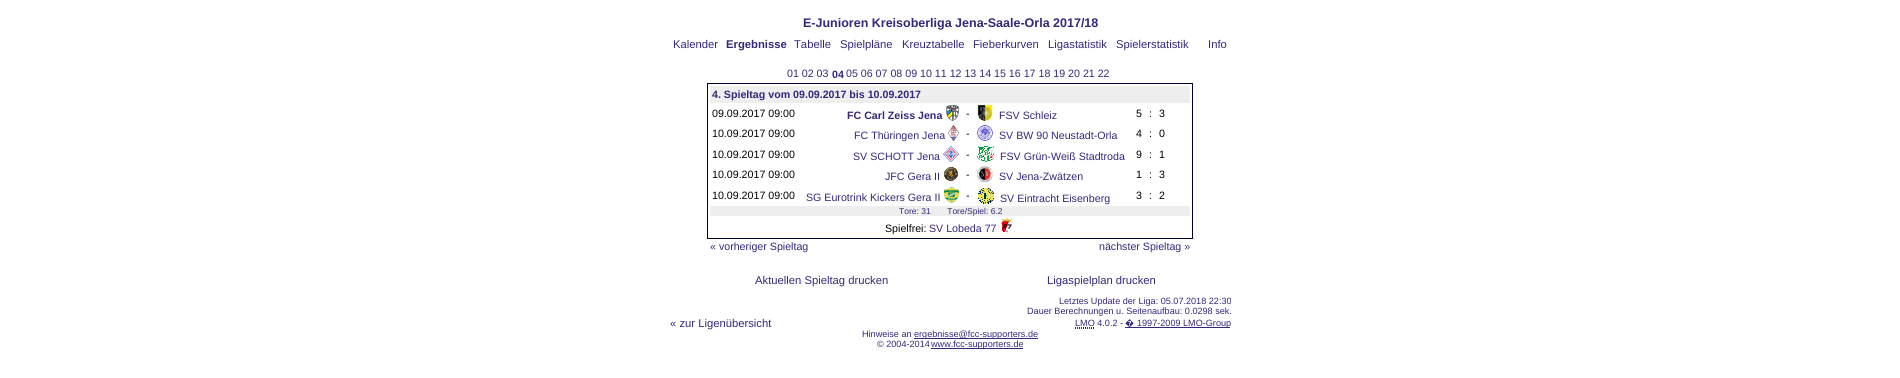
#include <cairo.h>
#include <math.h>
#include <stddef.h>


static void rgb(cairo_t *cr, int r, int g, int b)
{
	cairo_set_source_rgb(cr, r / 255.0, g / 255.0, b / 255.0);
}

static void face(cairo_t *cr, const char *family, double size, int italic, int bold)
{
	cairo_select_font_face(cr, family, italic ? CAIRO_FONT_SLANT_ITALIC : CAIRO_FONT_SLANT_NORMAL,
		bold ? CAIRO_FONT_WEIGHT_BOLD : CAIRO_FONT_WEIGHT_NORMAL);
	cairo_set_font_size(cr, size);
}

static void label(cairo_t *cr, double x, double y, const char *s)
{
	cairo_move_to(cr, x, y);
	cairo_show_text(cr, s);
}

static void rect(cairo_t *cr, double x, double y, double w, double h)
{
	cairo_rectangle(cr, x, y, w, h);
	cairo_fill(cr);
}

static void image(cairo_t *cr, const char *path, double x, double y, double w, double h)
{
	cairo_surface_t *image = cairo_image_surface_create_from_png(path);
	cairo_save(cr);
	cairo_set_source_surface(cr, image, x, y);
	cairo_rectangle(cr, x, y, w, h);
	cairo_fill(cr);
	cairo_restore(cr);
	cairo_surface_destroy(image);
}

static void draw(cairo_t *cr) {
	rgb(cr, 255, 255, 255);
	cairo_paint(cr);
	face(cr, "Liberation Sans", 12.5, 0, 1);
	rgb(cr, 52, 40, 123);
	label(cr, 803, 27, "E-Junioren Kreisoberliga Jena-Saale-Orla 2017/18");
	face(cr, "Liberation Sans", 11.25, 0, 0);
	label(cr, 673, 48, "Kalender");
	face(cr, "Liberation Sans", 11.25, 0, 1);
	label(cr, 726, 48, "Ergebnisse");
	face(cr, "Liberation Sans", 11.25, 0, 0);
	label(cr, 794, 48, "Tabelle");
	label(cr, 840, 48, "Spielpläne");
	label(cr, 902, 48, "Kreuztabelle");
	label(cr, 973, 48, "Fieberkurven");
	label(cr, 1048, 48, "Ligastatistik");
	label(cr, 1116, 48, "Spielerstatistik");
	label(cr, 1208, 48, "Info");
	face(cr, "Liberation Sans", 10.65, 0, 0);
	label(cr, 787, 77, "01 02 03");
	face(cr, "Liberation Sans", 10.65, 0, 1);
	label(cr, 832, 78, "04");
	face(cr, "Liberation Sans", 10.65, 0, 0);
	label(cr, 846, 77, "05 06 07 08 09 10 11 12 13 14 15 16 17 18 19 20 21 22");
	cairo_rectangle(cr, 707.5, 83.5, 485, 155);
	rgb(cr, 0, 0, 51);
	cairo_set_line_width(cr, 1);
	cairo_stroke(cr);
	rgb(cr, 238, 238, 238);
	rect(cr, 710, 86, 480, 17);
	face(cr, "Liberation Sans", 10.65, 0, 1);
	rgb(cr, 52, 40, 123);
	label(cr, 712, 98, "4. Spieltag vom 09.09.2017 bis 10.09.2017");
	face(cr, "Liberation Sans", 10.65, 0, 0);
	rgb(cr, 0, 0, 0);
	label(cr, 712, 117, "09.09.2017 09:00");
	face(cr, "Liberation Sans", 10.65, 0, 1);
	rgb(cr, 52, 40, 123);
	label(cr, 847, 119, "FC Carl Zeiss Jena");
	image(cr, "image0.png", 946, 105, 13, 16);
	face(cr, "Liberation Sans", 10.65, 0, 0);
	rgb(cr, 0, 0, 0);
	label(cr, 966, 117, "-");
	image(cr, "image1.png", 977, 105, 16, 16);
	rgb(cr, 52, 40, 123);
	label(cr, 999, 119, "FSV Schleiz");
	rgb(cr, 0, 0, 0);
	label(cr, 1136, 117, "5");
	label(cr, 1149, 117, ":");
	label(cr, 1159, 117, "3");
	label(cr, 712, 137, "10.09.2017 09:00");
	rgb(cr, 52, 40, 123);
	label(cr, 854, 139, "FC Thüringen Jena");
	image(cr, "image2.png", 948, 125, 11, 16);
	rgb(cr, 0, 0, 0);
	label(cr, 966, 137, "-");
	image(cr, "image3.png", 977, 125, 16, 16);
	rgb(cr, 52, 40, 123);
	label(cr, 999, 139, "SV BW 90 Neustadt-Orla");
	rgb(cr, 0, 0, 0);
	label(cr, 1136, 137, "4");
	label(cr, 1149, 137, ":");
	label(cr, 1159, 137, "0");
	label(cr, 712, 158, "10.09.2017 09:00");
	rgb(cr, 52, 40, 123);
	label(cr, 853, 160, "SV SCHOTT Jena");
	image(cr, "image4.png", 943, 146, 16, 16);
	rgb(cr, 0, 0, 0);
	label(cr, 966, 158, "-");
	image(cr, "image5.png", 977, 146, 17, 16);
	rgb(cr, 52, 40, 123);
	label(cr, 1000, 160, "FSV Grün-Weiß Stadtroda");
	rgb(cr, 0, 0, 0);
	label(cr, 1136, 158, "9");
	label(cr, 1149, 158, ":");
	label(cr, 1159, 158, "1");
	label(cr, 712, 178, "10.09.2017 09:00");
	rgb(cr, 52, 40, 123);
	label(cr, 885, 180, "JFC Gera II");
	image(cr, "image6.png", 944, 167, 14, 14);
	rgb(cr, 0, 0, 0);
	label(cr, 966, 178, "-");
	image(cr, "image7.png", 977, 166, 16, 16);
	rgb(cr, 52, 40, 123);
	label(cr, 999, 180, "SV Jena-Zwätzen");
	rgb(cr, 0, 0, 0);
	label(cr, 1136, 178, "1");
	label(cr, 1149, 178, ":");
	label(cr, 1159, 178, "3");
	label(cr, 712, 199, "10.09.2017 09:00");
	rgb(cr, 52, 40, 123);
	label(cr, 806, 201, "SG Eurotrink Kickers Gera II");
	image(cr, "image8.png", 944, 187, 15, 16);
	rgb(cr, 0, 0, 0);
	label(cr, 966, 199, "-");
	image(cr, "image9.png", 978, 187, 16, 17);
	rgb(cr, 52, 40, 123);
	label(cr, 1000, 202, "SV Eintracht Eisenberg");
	rgb(cr, 0, 0, 0);
	label(cr, 1136, 199, "3");
	label(cr, 1149, 199, ":");
	label(cr, 1159, 199, "2");
	rgb(cr, 238, 238, 238);
	rect(cr, 710, 206, 480, 10);
	face(cr, "Liberation Sans", 8.5, 0, 0);
	rgb(cr, 52, 40, 123);
	label(cr, 899, 214, "Tore: 31       Tore/Spiel: 6.2");
	face(cr, "Liberation Sans", 10.65, 0, 0);
	rgb(cr, 0, 0, 0);
	label(cr, 885, 232, "Spielfrei:");
	rgb(cr, 52, 40, 123);
	label(cr, 929, 232, "SV Lobeda 77");
	image(cr, "image10.png", 1001, 218, 11, 15);
	label(cr, 710, 250, "« vorheriger Spieltag");
	label(cr, 1099, 250, "nächster Spieltag »");
	face(cr, "Liberation Sans", 11.25, 0, 0);
	label(cr, 755, 284, "Aktuellen Spieltag drucken");
	label(cr, 1047, 284, "Ligaspielplan drucken");
	label(cr, 670, 327, "« zur Ligenübersicht");
	face(cr, "Liberation Sans", 9.1, 0, 0);
	label(cr, 1059, 304, "Letztes Update der Liga: 05.07.2018 22:30");
	label(cr, 1027, 314, "Dauer Berechnungen u. Seitenaufbau: 0.0298 sek.");
	label(cr, 1075, 326, "LMO 4.0.2 -");
	cairo_new_path(cr);
	cairo_move_to(cr, 1075, 328.5);
	cairo_line_to(cr, 1094, 328.5);
	cairo_move_to(cr, 1075, 327.5);
	cairo_line_to(cr, 1094.5, 327.5);
	cairo_set_dash(cr, (double[]){1, 1}, 2, 0);
	cairo_stroke(cr);
	rect(cr, 1125, 327, 105, 1);
	face(cr, "Noto Sans", 9.1, 0, 0);
	label(cr, 1125, 326, "�");
	face(cr, "Liberation Sans", 9.1, 0, 0);
	label(cr, 1137, 326, "1997-2009 LMO-Group");
	label(cr, 862, 337, "Hinweise an");
	rect(cr, 914, 338, 124, 1);
	label(cr, 914, 337, "ergebnisse@fcc-supporters.de");
	label(cr, 877, 347, "© 2004-2014");
	rect(cr, 931, 348, 92, 1);
	label(cr, 931, 347, "www.fcc-supporters.de");
}

int main(void) {
	cairo_surface_t *surface = cairo_image_surface_create(CAIRO_FORMAT_RGB24, 1900, 378);
	cairo_t *cr = cairo_create(surface);
	cairo_font_options_t *options = cairo_font_options_create();
	cairo_font_options_set_hint_metrics(options, CAIRO_HINT_METRICS_OFF);
	cairo_font_options_set_hint_style(options, CAIRO_HINT_STYLE_NONE);
	cairo_set_font_options(cr, options);
	cairo_set_miter_limit(cr, 4);
	draw(cr);
	cairo_surface_write_to_png(surface, "render.png");
	cairo_font_options_destroy(options);
	cairo_destroy(cr);
	cairo_surface_destroy(surface);
	return 0;
}
